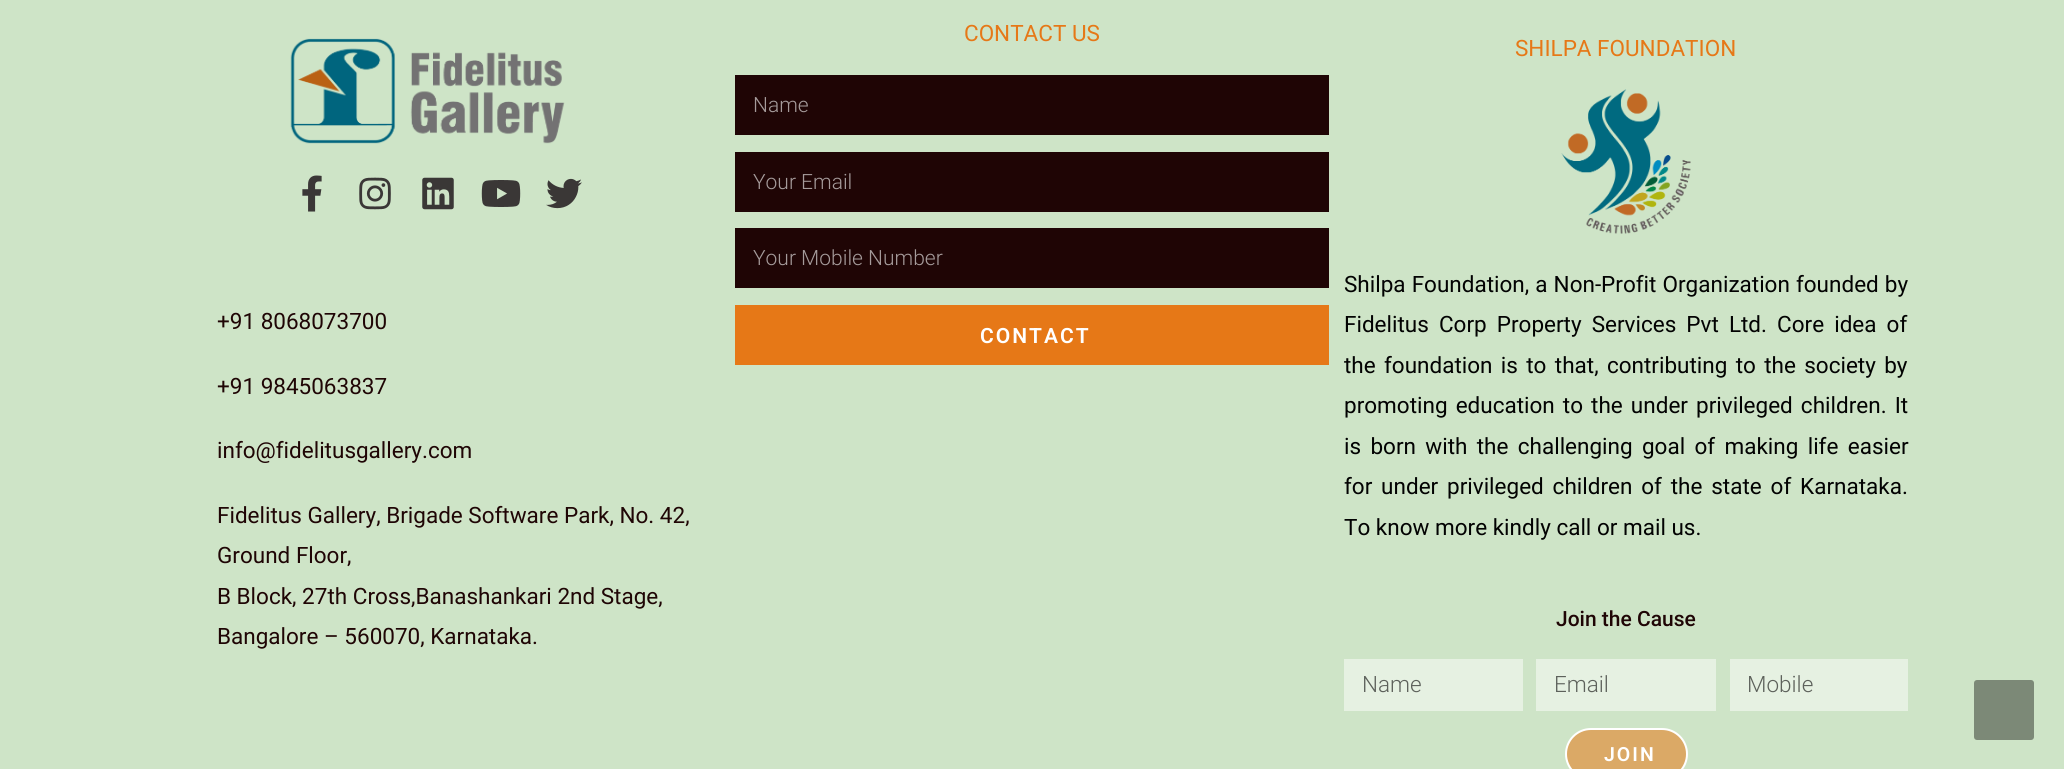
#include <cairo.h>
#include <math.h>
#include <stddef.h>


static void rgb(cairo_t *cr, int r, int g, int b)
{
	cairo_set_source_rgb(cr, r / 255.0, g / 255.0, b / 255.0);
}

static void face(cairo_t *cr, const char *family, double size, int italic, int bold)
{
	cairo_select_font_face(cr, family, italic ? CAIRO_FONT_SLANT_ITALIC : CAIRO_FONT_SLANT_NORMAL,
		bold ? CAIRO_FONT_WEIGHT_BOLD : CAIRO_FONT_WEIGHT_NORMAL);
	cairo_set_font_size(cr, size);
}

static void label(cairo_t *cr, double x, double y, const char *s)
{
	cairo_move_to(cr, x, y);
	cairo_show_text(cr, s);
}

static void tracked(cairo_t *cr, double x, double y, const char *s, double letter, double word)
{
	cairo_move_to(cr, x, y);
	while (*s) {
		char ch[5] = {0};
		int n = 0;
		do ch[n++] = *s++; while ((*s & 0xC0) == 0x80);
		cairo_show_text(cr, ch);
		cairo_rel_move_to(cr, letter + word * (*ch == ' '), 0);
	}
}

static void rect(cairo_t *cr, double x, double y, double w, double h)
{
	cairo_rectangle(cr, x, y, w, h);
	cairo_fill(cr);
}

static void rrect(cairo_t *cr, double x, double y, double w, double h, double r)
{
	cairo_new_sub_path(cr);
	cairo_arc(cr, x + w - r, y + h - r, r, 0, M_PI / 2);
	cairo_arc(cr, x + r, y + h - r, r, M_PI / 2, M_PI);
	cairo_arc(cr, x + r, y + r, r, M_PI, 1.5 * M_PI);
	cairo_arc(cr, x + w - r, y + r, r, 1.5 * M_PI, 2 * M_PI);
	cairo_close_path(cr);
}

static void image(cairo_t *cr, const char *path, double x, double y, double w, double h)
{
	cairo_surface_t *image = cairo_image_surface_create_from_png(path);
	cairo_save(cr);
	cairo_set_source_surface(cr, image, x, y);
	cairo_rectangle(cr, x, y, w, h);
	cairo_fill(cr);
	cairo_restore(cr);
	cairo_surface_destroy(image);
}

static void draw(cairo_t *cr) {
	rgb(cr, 206, 228, 199);
	cairo_paint(cr);
	image(cr, "image0.png", 290, 38, 275, 106);
	image(cr, "image1.png", 302, 175, 20, 37);
	image(cr, "image2.png", 359, 177, 32, 33);
	image(cr, "image3.png", 422, 177, 32, 33);
	image(cr, "image4.png", 481, 180, 40, 27);
	image(cr, "image5.png", 546, 178, 36, 31);
	face(cr, "Roboto", 22.5, 0, 0);
	rgb(cr, 31, 5, 5);
	label(cr, 217, 329, "+91 8068073700");
	label(cr, 217, 394, "+91 9845063837");
	label(cr, 217, 458, "info@fidelitusgallery.com");
	label(cr, 217, 523, "Fidelitus Gallery, Brigade Software Park, No. 42,");
	label(cr, 217, 563, "Ground Floor,");
	label(cr, 217, 604, "B Block, 27th Cross,Banashankari 2nd Stage,");
	label(cr, 217, 644, "Bangalore – 560070, Karnataka.");
	rgb(cr, 230, 120, 23);
	label(cr, 964, 41, "CONTACT US");
	rgb(cr, 31, 5, 5);
	rect(cr, 735, 75, 594, 60);
	face(cr, "Roboto Light", 21, 0, 0);
	rgb(cr, 165, 155, 155);
	label(cr, 753, 112, "Name");
	rgb(cr, 31, 5, 5);
	rect(cr, 735, 152, 594, 60);
	rgb(cr, 165, 155, 155);
	label(cr, 753, 189, "Your Email");
	rgb(cr, 31, 5, 5);
	rect(cr, 735, 228, 594, 60);
	rgb(cr, 165, 155, 155);
	label(cr, 753, 265, "Your Mobile Number");
	rgb(cr, 230, 120, 23);
	rect(cr, 735, 305, 594, 60);
	face(cr, "Roboto SemiBold", 21, 0, 0);
	rgb(cr, 255, 255, 255);
	tracked(cr, 980, 343, "CONTACT", 2, 0);
	face(cr, "Roboto", 22.5, 0, 0);
	rgb(cr, 230, 120, 23);
	label(cr, 1515, 56, "SHILPA FOUNDATION");
	image(cr, "image6.png", 1561, 89, 130, 145);
	rgb(cr, 2, 2, 2);
	tracked(cr, 1344, 292, "Shilpa Foundation, a Non-Profit Organization founded by", 0, 0.5);
	tracked(cr, 1344, 332, "Fidelitus Corp Property Services Pvt Ltd. Core idea of", 0, 4.5);
	tracked(cr, 1344, 373, "the foundation is to that, contributing to the society by", 0, 2.75);
	tracked(cr, 1344, 413, "promoting education to the under privileged children. It", 0, 2.5);
	tracked(cr, 1344, 454, "is born with the challenging goal of making life easier", 0, 3.75);
	tracked(cr, 1344, 494, "for under privileged children of the state of Karnataka.", 0, 3.25);
	label(cr, 1344, 535, "To know more kindly call or mail us.");
	face(cr, "Roboto Medium", 21, 0, 0);
	rgb(cr, 31, 5, 5);
	label(cr, 1556, 626, "Join the Cause");
	rgb(cr, 230, 241, 226);
	rect(cr, 1344, 659, 179, 52);
	face(cr, "Roboto Light", 22.5, 0, 0);
	rgb(cr, 93, 97, 91);
	label(cr, 1362, 692, "Name");
	rgb(cr, 230, 241, 226);
	rect(cr, 1536, 659, 180, 52);
	rgb(cr, 93, 97, 91);
	label(cr, 1554, 692, "Email");
	rgb(cr, 230, 241, 226);
	rect(cr, 1730, 659, 178, 52);
	rgb(cr, 93, 97, 91);
	label(cr, 1747, 692, "Mobile");
	rgb(cr, 219, 169, 102);
	rrect(cr, 1566, 729, 121, 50, 25);
	cairo_fill_preserve(cr);
	rgb(cr, 255, 255, 255);
	cairo_stroke(cr);
	face(cr, "Roboto SemiBold", 19.5, 0, 0);
	tracked(cr, 1604, 761, "JOIN", 2, 0);
	rgb(cr, 124, 137, 119);
	rrect(cr, 1974, 680, 60, 60, 3);
	cairo_fill(cr);
}

int main(void) {
	cairo_surface_t *surface = cairo_image_surface_create(CAIRO_FORMAT_RGB24, 2064, 769);
	cairo_t *cr = cairo_create(surface);
	cairo_font_options_t *options = cairo_font_options_create();
	cairo_font_options_set_hint_metrics(options, CAIRO_HINT_METRICS_OFF);
	cairo_font_options_set_hint_style(options, CAIRO_HINT_STYLE_NONE);
	cairo_set_font_options(cr, options);
	cairo_set_miter_limit(cr, 4);
	draw(cr);
	cairo_surface_write_to_png(surface, "render.png");
	cairo_font_options_destroy(options);
	cairo_destroy(cr);
	cairo_surface_destroy(surface);
	return 0;
}
